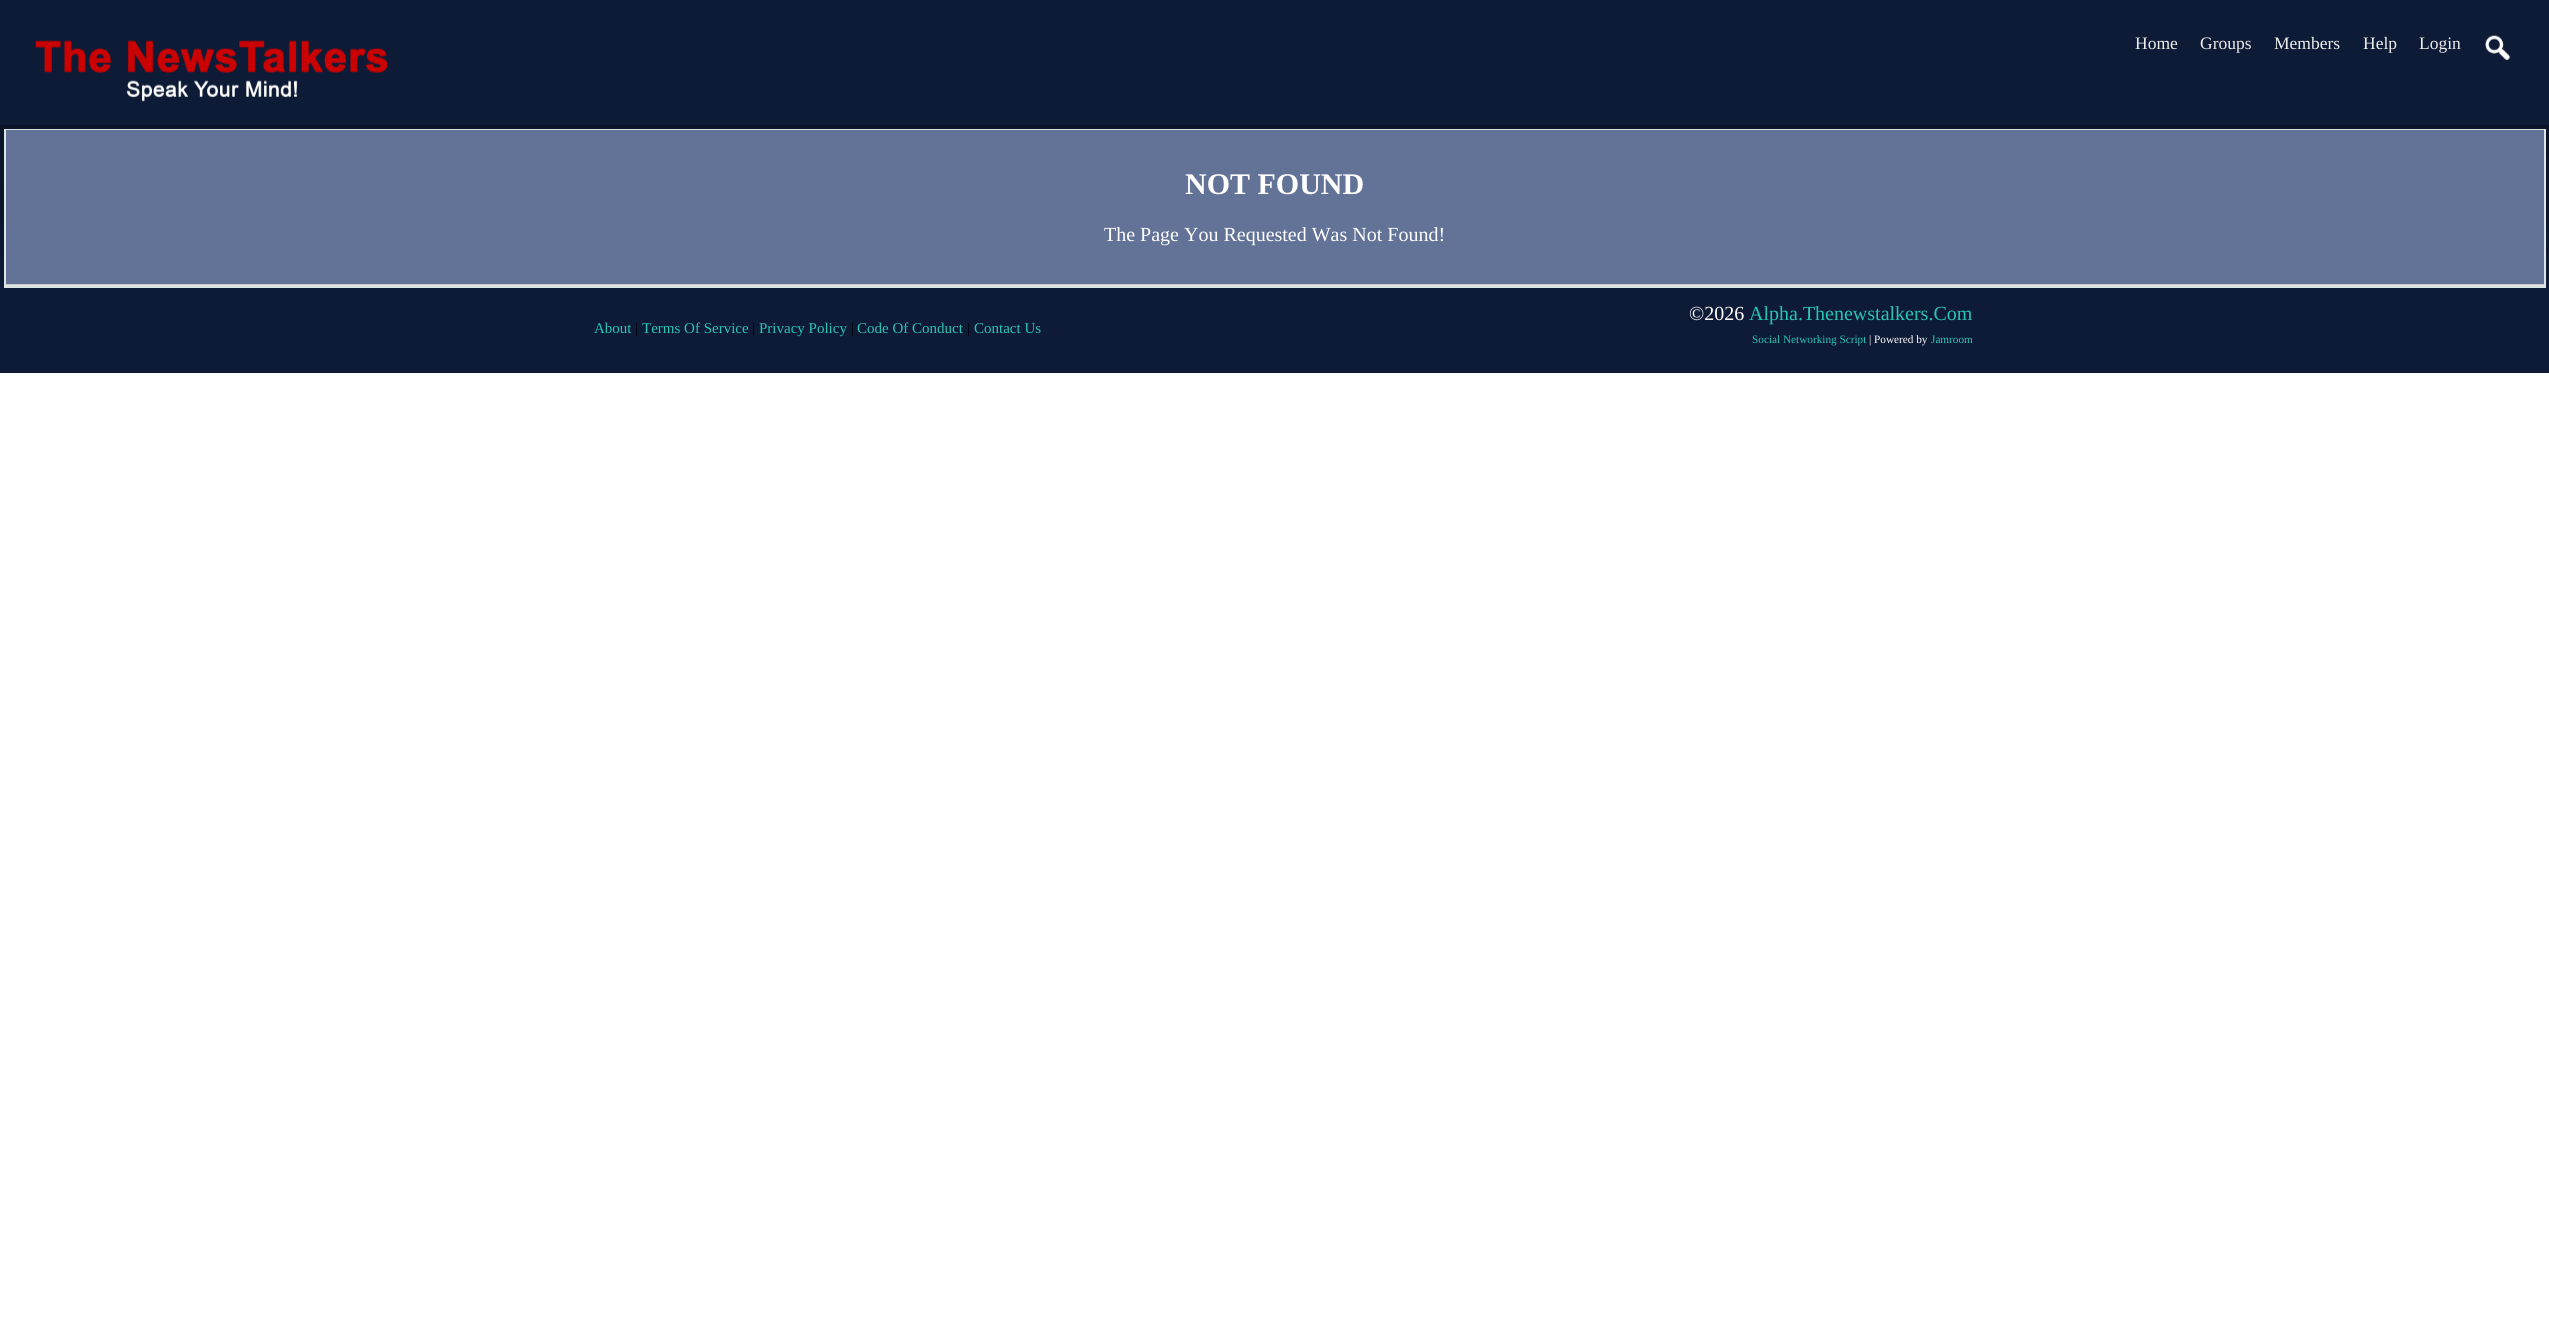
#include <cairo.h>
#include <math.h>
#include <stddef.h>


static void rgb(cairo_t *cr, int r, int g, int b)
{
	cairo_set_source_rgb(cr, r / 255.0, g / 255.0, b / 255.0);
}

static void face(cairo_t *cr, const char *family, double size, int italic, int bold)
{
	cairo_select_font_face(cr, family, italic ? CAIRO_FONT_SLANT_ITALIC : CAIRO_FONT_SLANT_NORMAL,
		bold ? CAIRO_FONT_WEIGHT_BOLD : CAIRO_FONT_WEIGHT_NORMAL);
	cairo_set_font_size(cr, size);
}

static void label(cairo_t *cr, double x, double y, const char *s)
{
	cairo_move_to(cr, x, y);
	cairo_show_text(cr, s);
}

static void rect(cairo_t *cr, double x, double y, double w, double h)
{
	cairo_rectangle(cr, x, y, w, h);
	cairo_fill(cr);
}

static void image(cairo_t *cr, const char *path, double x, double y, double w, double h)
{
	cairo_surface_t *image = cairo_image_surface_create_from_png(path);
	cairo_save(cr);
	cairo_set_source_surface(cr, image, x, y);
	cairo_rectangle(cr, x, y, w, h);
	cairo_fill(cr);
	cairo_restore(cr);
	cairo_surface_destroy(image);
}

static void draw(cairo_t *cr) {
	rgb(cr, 255, 255, 255);
	cairo_paint(cr);
	rgb(cr, 14, 27, 54);
	rect(cr, 0, 0, 2549, 373);
	image(cr, "image0.png", 35, 40, 353, 62);
	face(cr, "Liberation Serif", 17.5, 0, 0);
	rgb(cr, 238, 238, 238);
	label(cr, 2135, 49, "Home");
	label(cr, 2200, 49, "Groups");
	label(cr, 2274, 49, "Members");
	label(cr, 2363, 49, "Help");
	label(cr, 2419, 49, "Login");
	image(cr, "image1.png", 2485, 35, 25, 25);
	image(cr, "image2.png", 0, 125, 2549, 154);
	rgb(cr, 221, 228, 230);
	rect(cr, 4, 129, 2542, 159);
	rgb(cr, 99, 115, 151);
	rect(cr, 6, 130, 2538, 154);
	rgb(cr, 204, 204, 204);
	rect(cr, 6, 284, 2538, 1);
	face(cr, "Liberation Serif", 30, 0, 1);
	rgb(cr, 255, 255, 255);
	label(cr, 1185, 194, "NOT FOUND");
	face(cr, "Liberation Serif", 20, 0, 0);
	label(cr, 1104, 241, "The Page You Requested Was Not Found!");
	face(cr, "Liberation Serif", 15, 0, 0);
	rgb(cr, 41, 196, 180);
	label(cr, 594, 333, "About");
	rgb(cr, 0, 0, 0);
	label(cr, 635, 333, "|");
	rgb(cr, 41, 196, 180);
	label(cr, 642, 333, "Terms Of Service");
	rgb(cr, 0, 0, 0);
	label(cr, 752, 333, "|");
	rgb(cr, 41, 196, 180);
	label(cr, 759, 333, "Privacy Policy");
	rgb(cr, 0, 0, 0);
	label(cr, 851, 333, "|");
	rgb(cr, 41, 196, 180);
	label(cr, 857, 333, "Code Of Conduct");
	rgb(cr, 0, 0, 0);
	label(cr, 967, 333, "|");
	rgb(cr, 41, 196, 180);
	label(cr, 974, 333, "Contact Us");
	face(cr, "Liberation Serif", 20, 0, 0);
	rgb(cr, 255, 255, 255);
	label(cr, 1689, 320, "©2026");
	rgb(cr, 41, 196, 180);
	label(cr, 1749, 320, "Alpha.Thenewstalkers.Com");
	face(cr, "Liberation Serif", 11.25, 0, 0);
	label(cr, 1752, 343, "Social Networking Script");
	rgb(cr, 255, 255, 255);
	label(cr, 1869, 343, "| Powered by");
	rgb(cr, 41, 196, 180);
	label(cr, 1931, 343, "Jamroom");
}

int main(void) {
	cairo_surface_t *surface = cairo_image_surface_create(CAIRO_FORMAT_RGB24, 2549, 1338);
	cairo_t *cr = cairo_create(surface);
	cairo_font_options_t *options = cairo_font_options_create();
	cairo_font_options_set_hint_metrics(options, CAIRO_HINT_METRICS_OFF);
	cairo_font_options_set_hint_style(options, CAIRO_HINT_STYLE_NONE);
	cairo_set_font_options(cr, options);
	cairo_set_miter_limit(cr, 4);
	draw(cr);
	cairo_surface_write_to_png(surface, "render.png");
	cairo_font_options_destroy(options);
	cairo_destroy(cr);
	cairo_surface_destroy(surface);
	return 0;
}
